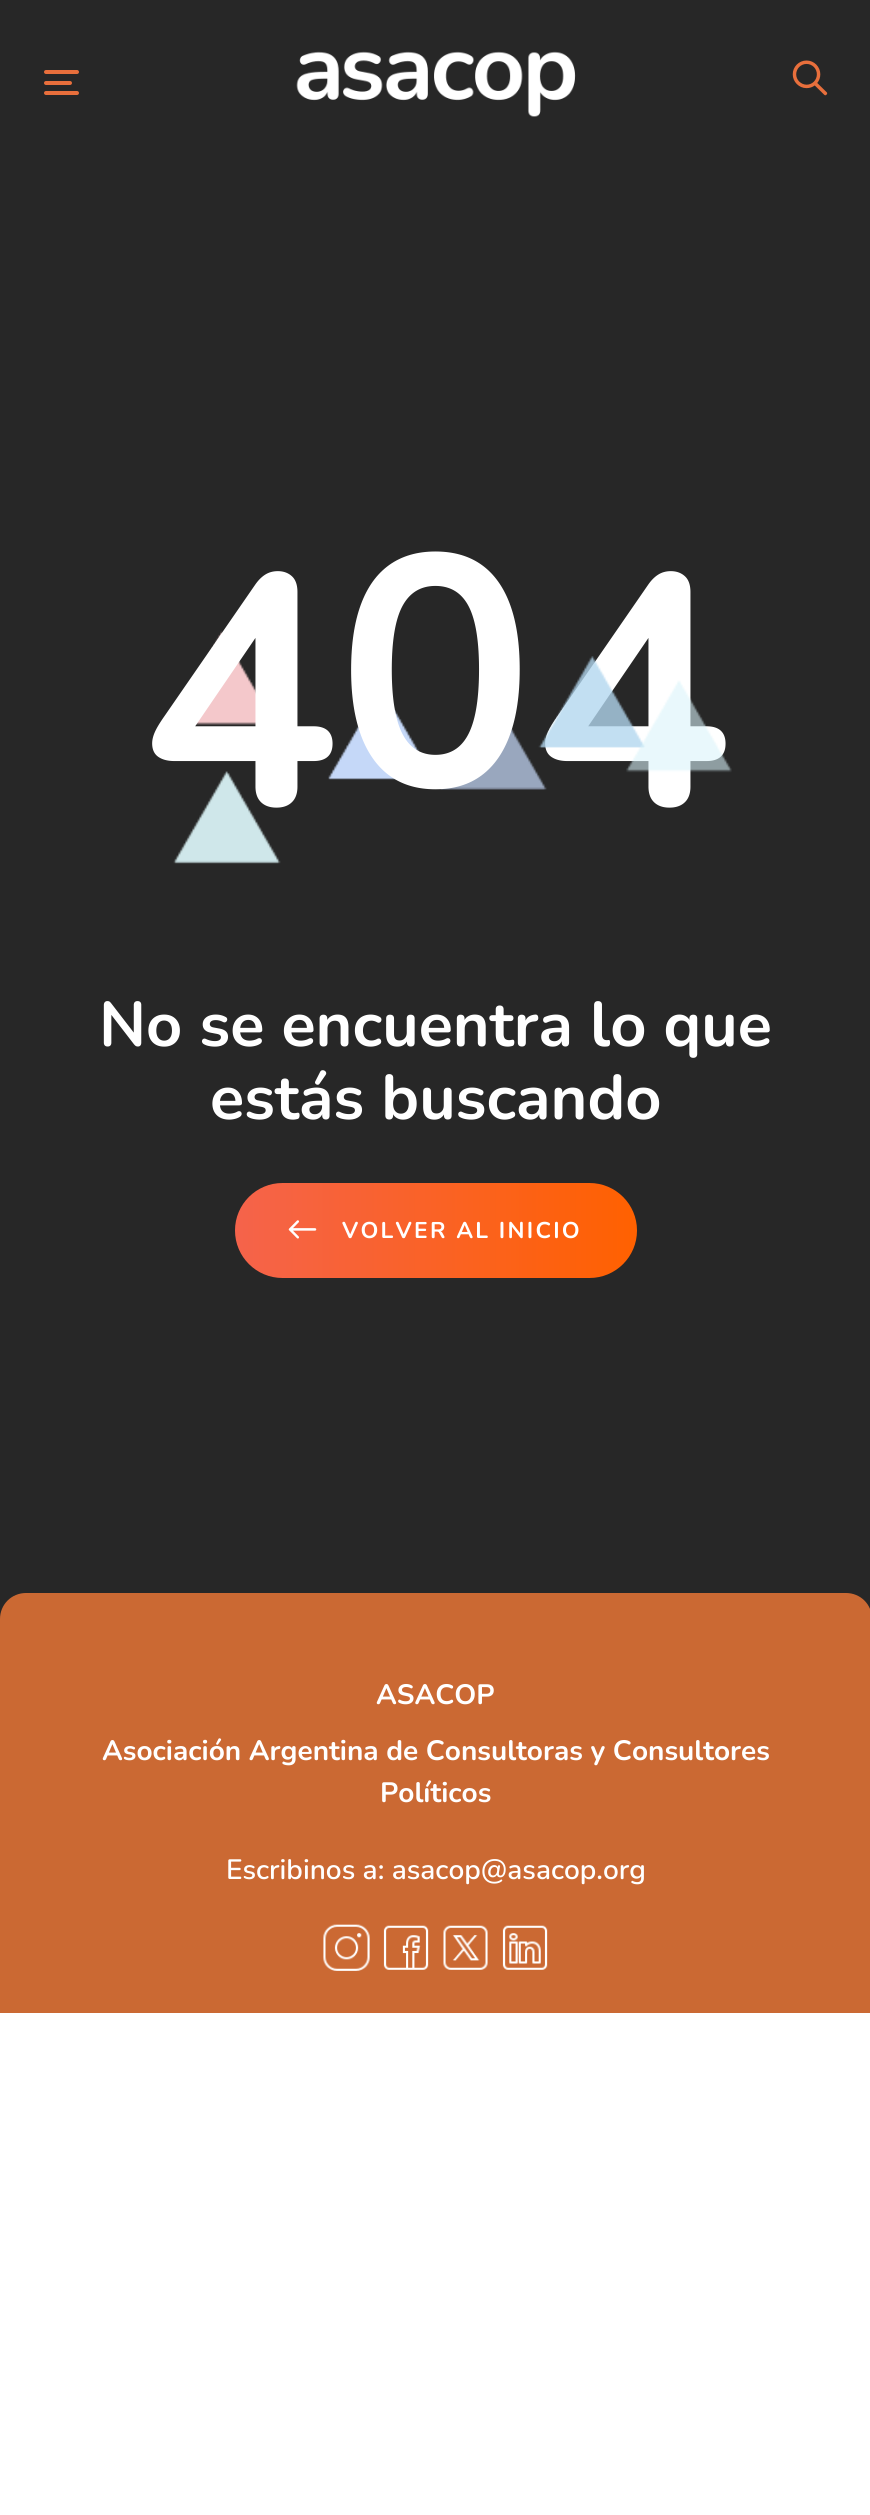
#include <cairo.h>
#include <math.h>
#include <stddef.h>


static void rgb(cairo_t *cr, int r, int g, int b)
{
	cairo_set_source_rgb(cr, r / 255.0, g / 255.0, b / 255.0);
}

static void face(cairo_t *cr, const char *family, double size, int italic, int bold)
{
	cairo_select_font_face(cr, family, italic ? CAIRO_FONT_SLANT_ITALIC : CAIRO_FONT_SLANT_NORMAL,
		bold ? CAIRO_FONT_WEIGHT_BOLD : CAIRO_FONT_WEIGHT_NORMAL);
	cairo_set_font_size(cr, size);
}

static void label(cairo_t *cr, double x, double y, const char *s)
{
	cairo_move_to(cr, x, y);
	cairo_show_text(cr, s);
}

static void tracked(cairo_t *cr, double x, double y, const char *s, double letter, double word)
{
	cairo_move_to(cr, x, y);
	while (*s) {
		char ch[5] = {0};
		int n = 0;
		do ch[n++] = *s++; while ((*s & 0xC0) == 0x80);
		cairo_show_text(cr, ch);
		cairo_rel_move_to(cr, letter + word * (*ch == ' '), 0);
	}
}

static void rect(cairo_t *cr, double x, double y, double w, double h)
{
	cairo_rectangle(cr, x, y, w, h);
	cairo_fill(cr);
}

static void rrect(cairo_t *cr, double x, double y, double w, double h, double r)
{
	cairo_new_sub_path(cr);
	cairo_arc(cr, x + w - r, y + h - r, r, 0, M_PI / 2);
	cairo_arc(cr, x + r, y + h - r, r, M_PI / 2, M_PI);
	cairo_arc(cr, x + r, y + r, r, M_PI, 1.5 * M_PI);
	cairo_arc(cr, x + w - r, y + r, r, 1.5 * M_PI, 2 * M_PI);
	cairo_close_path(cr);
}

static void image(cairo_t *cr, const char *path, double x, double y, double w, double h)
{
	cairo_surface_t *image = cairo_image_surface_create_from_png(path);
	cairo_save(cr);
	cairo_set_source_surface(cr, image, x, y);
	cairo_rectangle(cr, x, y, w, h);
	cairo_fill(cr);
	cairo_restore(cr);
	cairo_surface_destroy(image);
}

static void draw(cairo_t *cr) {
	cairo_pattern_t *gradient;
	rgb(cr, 255, 255, 255);
	cairo_paint(cr);
	rgb(cr, 39, 39, 39);
	rect(cr, 0, 0, 870, 1619);
	rgb(cr, 232, 111, 60);
	rrect(cr, 44, 70, 35, 4, 2);
	cairo_fill(cr);
	rrect(cr, 44, 81, 28, 4, 2);
	cairo_fill(cr);
	rrect(cr, 44, 91, 35, 4, 2);
	cairo_fill(cr);
	image(cr, "image0.png", 296, 51, 280, 66);
	image(cr, "image1.png", 792, 60, 36, 36);
	image(cr, "image2.png", 169, 631, 378, 159);
	face(cr, "Nunito", 328, 0, 1);
	rgb(cr, 255, 255, 255);
	label(cr, 141, 805, "4");
	label(cr, 337, 786, "0");
	label(cr, 534, 805, "4");
	image(cr, "image3.png", 173, 656, 559, 208);
	face(cr, "Nunito", 63, 0, 1);
	label(cr, 99, 1046, "No se encuentra lo que");
	label(cr, 210, 1119, "estás buscando");
	gradient = cairo_pattern_create_linear(235, 1230, 637, 1230);
	cairo_pattern_add_color_stop_rgba(gradient, 0, 0.961, 0.388, 0.294, 1);
	cairo_pattern_add_color_stop_rgba(gradient, 1, 1, 0.38, 0, 1);
	cairo_set_source(cr, gradient);
	cairo_pattern_destroy(gradient);
	rrect(cr, 235, 1183, 402, 95, 47.5);
	cairo_fill(cr);
	image(cr, "image4.png", 288, 1220, 29, 19);
	face(cr, "Nunito", 22.75, 0, 1);
	rgb(cr, 255, 255, 255);
	tracked(cr, 342, 1238, "VOLVER AL INICIO", 2.25, 0);
	rgb(cr, 203, 105, 51);
	cairo_new_path(cr);
	cairo_move_to(cr, 26, 1593);
	cairo_line_to(cr, 846, 1593);
	cairo_curve_to(cr, 860.5, 1593, 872, 1604.5, 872, 1619);
	cairo_line_to(cr, 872, 2013);
	cairo_line_to(cr, 0, 2013);
	cairo_line_to(cr, 0, 1619);
	cairo_curve_to(cr, 0, 1604.5, 11.5, 1593, 26, 1593);
	cairo_close_path(cr);
	cairo_fill(cr);
	face(cr, "Nunito", 28, 0, 1);
	rgb(cr, 255, 255, 255);
	label(cr, 376, 1704, "ASACOP");
	label(cr, 102, 1760, "Asociación Argentina de Consultoras y Consultores");
	label(cr, 380, 1802, "Políticos");
	face(cr, "Nunito SemiBold", 28, 0, 0);
	label(cr, 226, 1879, "Escribinos a: asacop@asacop.org");
	image(cr, "image5.png", 323, 1924, 47, 47);
	image(cr, "image6.png", 383, 1925, 46, 45);
	image(cr, "image7.png", 443, 1925, 45, 45);
	image(cr, "image8.png", 502, 1925, 46, 45);
}

int main(void) {
	cairo_surface_t *surface = cairo_image_surface_create(CAIRO_FORMAT_RGB24, 870, 2515);
	cairo_t *cr = cairo_create(surface);
	cairo_font_options_t *options = cairo_font_options_create();
	cairo_font_options_set_hint_metrics(options, CAIRO_HINT_METRICS_OFF);
	cairo_font_options_set_hint_style(options, CAIRO_HINT_STYLE_NONE);
	cairo_set_font_options(cr, options);
	cairo_set_miter_limit(cr, 4);
	draw(cr);
	cairo_surface_write_to_png(surface, "render.png");
	cairo_font_options_destroy(options);
	cairo_destroy(cr);
	cairo_surface_destroy(surface);
	return 0;
}
